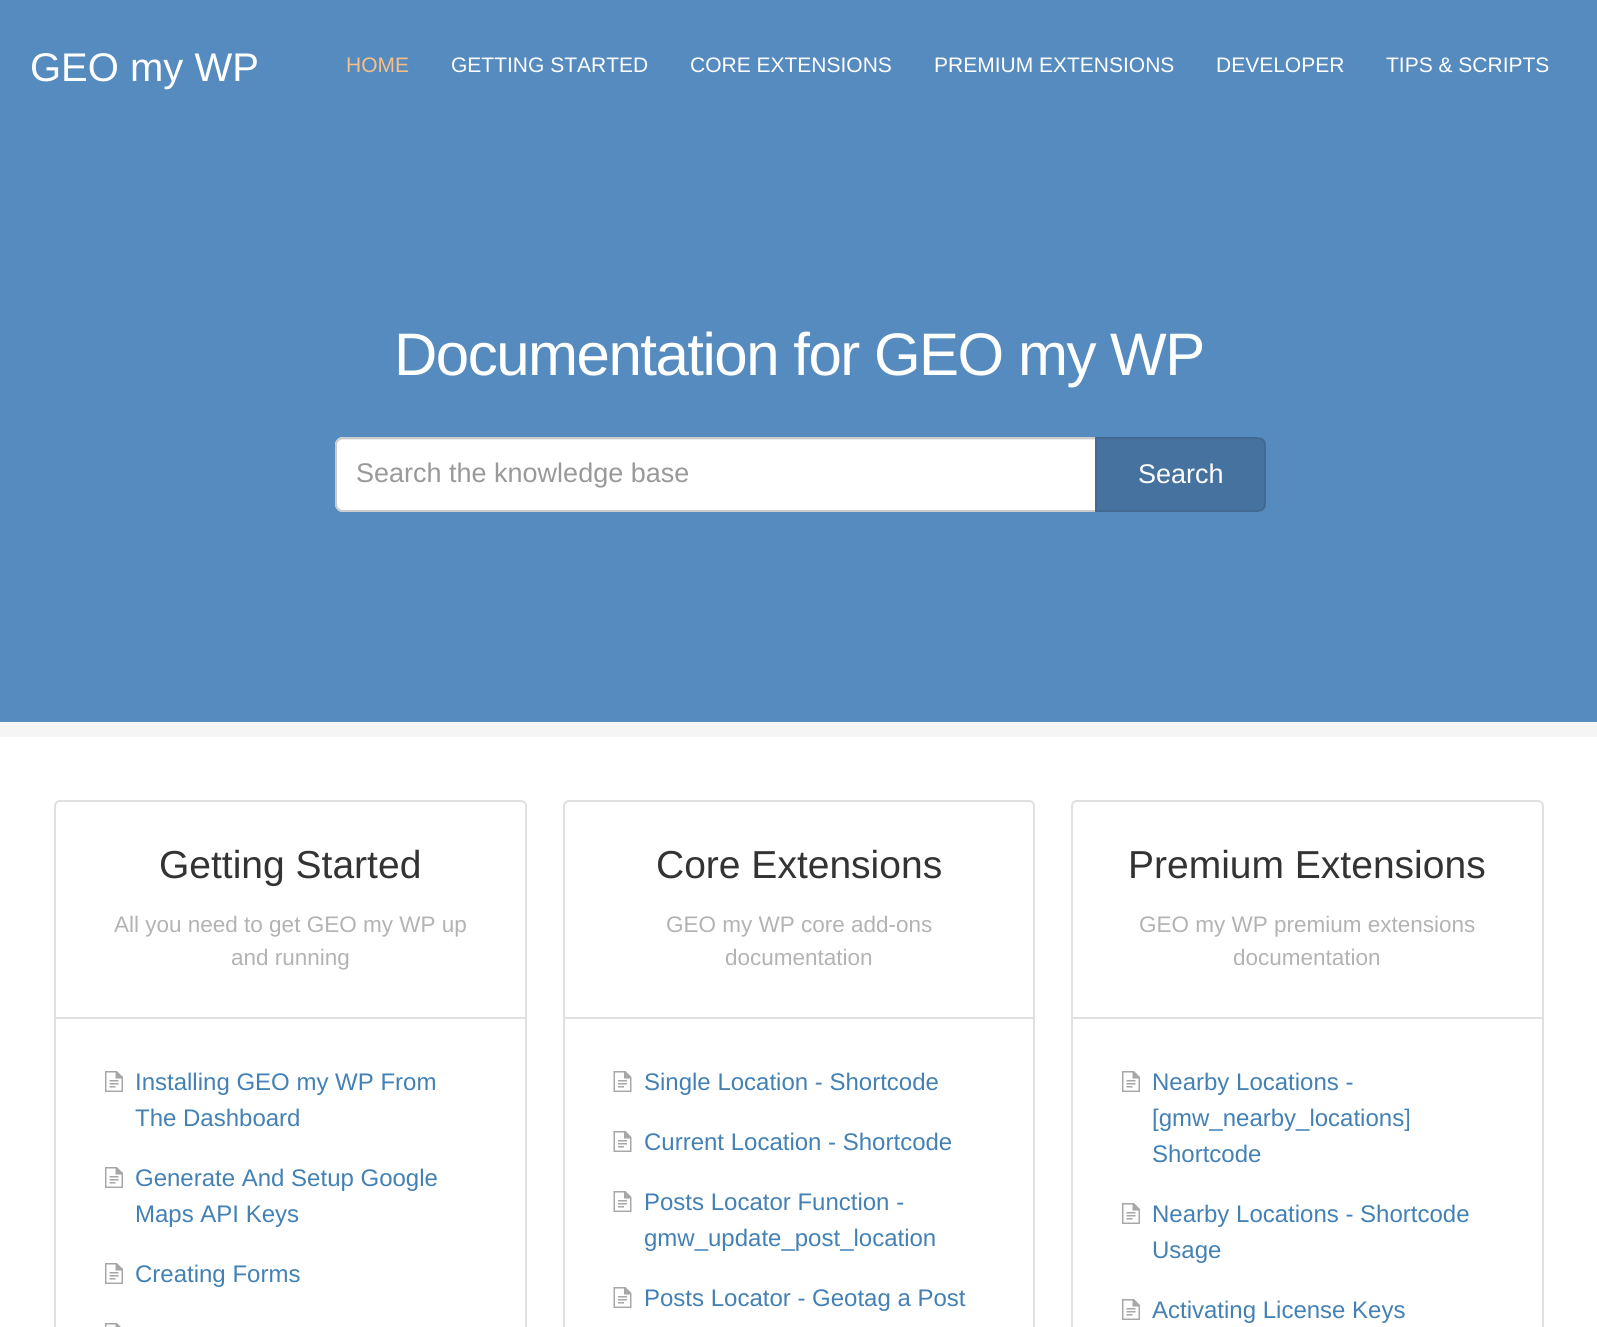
#include <cairo.h>
#include <math.h>
#include <stddef.h>


static void rgb(cairo_t *cr, int r, int g, int b)
{
	cairo_set_source_rgb(cr, r / 255.0, g / 255.0, b / 255.0);
}

static void face(cairo_t *cr, const char *family, double size, int italic, int bold)
{
	cairo_select_font_face(cr, family, italic ? CAIRO_FONT_SLANT_ITALIC : CAIRO_FONT_SLANT_NORMAL,
		bold ? CAIRO_FONT_WEIGHT_BOLD : CAIRO_FONT_WEIGHT_NORMAL);
	cairo_set_font_size(cr, size);
}

static void label(cairo_t *cr, double x, double y, const char *s)
{
	cairo_move_to(cr, x, y);
	cairo_show_text(cr, s);
}

static void tracked(cairo_t *cr, double x, double y, const char *s, double letter, double word)
{
	cairo_move_to(cr, x, y);
	while (*s) {
		char ch[5] = {0};
		int n = 0;
		do ch[n++] = *s++; while ((*s & 0xC0) == 0x80);
		cairo_show_text(cr, ch);
		cairo_rel_move_to(cr, letter + word * (*ch == ' '), 0);
	}
}

static void rect(cairo_t *cr, double x, double y, double w, double h)
{
	cairo_rectangle(cr, x, y, w, h);
	cairo_fill(cr);
}

static void rrect(cairo_t *cr, double x, double y, double w, double h, double r)
{
	cairo_new_sub_path(cr);
	cairo_arc(cr, x + w - r, y + h - r, r, 0, M_PI / 2);
	cairo_arc(cr, x + r, y + h - r, r, M_PI / 2, M_PI);
	cairo_arc(cr, x + r, y + r, r, M_PI, 1.5 * M_PI);
	cairo_arc(cr, x + w - r, y + r, r, 1.5 * M_PI, 2 * M_PI);
	cairo_close_path(cr);
}

static void image(cairo_t *cr, const char *path, double x, double y, double w, double h)
{
	cairo_surface_t *image = cairo_image_surface_create_from_png(path);
	cairo_save(cr);
	cairo_set_source_surface(cr, image, x, y);
	cairo_rectangle(cr, x, y, w, h);
	cairo_fill(cr);
	cairo_restore(cr);
	cairo_surface_destroy(image);
}

static void draw(cairo_t *cr) {
	rgb(cr, 255, 255, 255);
	cairo_paint(cr);
	rgb(cr, 86, 139, 191);
	rect(cr, 0, 0, 1597, 722);
	face(cr, "Liberation Sans", 40, 0, 0);
	rgb(cr, 255, 255, 255);
	label(cr, 30, 81, "GEO my WP");
	face(cr, "Liberation Sans", 21, 0, 0);
	rgb(cr, 246, 191, 136);
	label(cr, 346, 72, "HOME");
	rgb(cr, 255, 255, 255);
	label(cr, 451, 72, "GETTING STARTED");
	label(cr, 690, 72, "CORE EXTENSIONS");
	label(cr, 934, 72, "PREMIUM EXTENSIONS");
	label(cr, 1216, 72, "DEVELOPER");
	label(cr, 1386, 72, "TIPS & SCRIPTS");
	rgb(cr, 245, 245, 245);
	rect(cr, 0, 722, 1597, 15);
	face(cr, "Liberation Sans", 60, 0, 0);
	rgb(cr, 255, 255, 255);
	tracked(cr, 394, 375, "Documentation for GEO my WP", -1.5, 0);
	rrect(cr, 335, 437, 930, 75, 8);
	cairo_fill(cr);
	rgb(cr, 236, 236, 236);
	cairo_new_path(cr);
	cairo_move_to(cr, 342, 440);
	cairo_line_to(cr, 1257, 440);
	cairo_curve_to(cr, 1260, 440, 1263, 442, 1263, 446);
	cairo_line_to(cr, 1263, 444);
	cairo_curve_to(cr, 1263, 441, 1260, 438, 1257, 438);
	cairo_line_to(cr, 342, 438);
	cairo_curve_to(cr, 339, 438, 336, 441, 336, 444);
	cairo_line_to(cr, 336, 446);
	cairo_curve_to(cr, 336, 442, 339, 440, 342, 440);
	cairo_close_path(cr);
	cairo_fill(cr);
	rrect(cr, 336, 438, 928, 73, 7);
	rgb(cr, 204, 204, 204);
	cairo_stroke(cr);
	face(cr, "Liberation Sans", 27, 0, 0);
	rgb(cr, 153, 153, 153);
	label(cr, 356, 482, "Search the knowledge base");
	rgb(cr, 69, 114, 159);
	cairo_new_path(cr);
	cairo_move_to(cr, 1096, 438);
	cairo_line_to(cr, 1258, 438);
	cairo_curve_to(cr, 1262, 438, 1265, 441, 1265, 445);
	cairo_line_to(cr, 1265, 504);
	cairo_curve_to(cr, 1265, 508, 1262, 511, 1258, 511);
	cairo_line_to(cr, 1096, 511);
	cairo_close_path(cr);
	cairo_fill_preserve(cr);
	rgb(cr, 65, 105, 145);
	cairo_stroke(cr);
	rgb(cr, 255, 255, 255);
	label(cr, 1138, 483, "Search");
	rrect(cr, 55, 801, 471, 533, 5);
	rgb(cr, 225, 224, 224);
	cairo_stroke(cr);
	rect(cr, 56, 1017, 469, 2);
	face(cr, "Liberation Sans", 39, 0, 0);
	rgb(cr, 51, 51, 51);
	label(cr, 159, 878, "Getting Started");
	face(cr, "Liberation Sans", 22.5, 0, 0);
	rgb(cr, 179, 179, 179);
	label(cr, 114, 932, "All you need to get GEO my WP up");
	label(cr, 231, 965, "and running");
	image(cr, "image0.png", 105, 1071, 18, 21);
	face(cr, "Liberation Sans", 24, 0, 0);
	rgb(cr, 67, 129, 181);
	label(cr, 135, 1090, "Installing GEO my WP From");
	label(cr, 135, 1126, "The Dashboard");
	image(cr, "image0.png", 105, 1167, 18, 21);
	label(cr, 135, 1186, "Generate And Setup Google");
	label(cr, 135, 1222, "Maps API Keys");
	image(cr, "image0.png", 105, 1263, 18, 21);
	label(cr, 135, 1282, "Creating Forms");
	image(cr, "image1.png", 105, 1323, 16, 4);
	rrect(cr, 564, 801, 470, 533, 5);
	rgb(cr, 225, 224, 224);
	cairo_stroke(cr);
	rect(cr, 564, 1017, 470, 2);
	face(cr, "Liberation Sans", 39, 0, 0);
	rgb(cr, 51, 51, 51);
	label(cr, 656, 878, "Core Extensions");
	face(cr, "Liberation Sans", 22.5, 0, 0);
	rgb(cr, 179, 179, 179);
	label(cr, 666, 932, "GEO my WP core add-ons");
	label(cr, 725, 965, "documentation");
	image(cr, "image2.png", 613, 1071, 19, 21);
	face(cr, "Liberation Sans", 24, 0, 0);
	rgb(cr, 67, 129, 181);
	label(cr, 644, 1090, "Single Location - Shortcode");
	image(cr, "image2.png", 613, 1131, 19, 21);
	label(cr, 644, 1150, "Current Location - Shortcode");
	image(cr, "image2.png", 613, 1191, 19, 21);
	label(cr, 644, 1210, "Posts Locator Function -");
	label(cr, 644, 1246, "gmw_update_post_location");
	image(cr, "image2.png", 613, 1287, 19, 21);
	label(cr, 644, 1306, "Posts Locator - Geotag a Post");
	rrect(cr, 1072, 801, 471, 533, 5);
	rgb(cr, 225, 224, 224);
	cairo_stroke(cr);
	rect(cr, 1073, 1017, 469, 2);
	face(cr, "Liberation Sans", 39, 0, 0);
	rgb(cr, 51, 51, 51);
	label(cr, 1128, 878, "Premium Extensions");
	face(cr, "Liberation Sans", 22.5, 0, 0);
	rgb(cr, 179, 179, 179);
	label(cr, 1139, 932, "GEO my WP premium extensions");
	label(cr, 1233, 965, "documentation");
	image(cr, "image0.png", 1122, 1071, 18, 21);
	face(cr, "Liberation Sans", 24, 0, 0);
	rgb(cr, 67, 129, 181);
	label(cr, 1152, 1090, "Nearby Locations -");
	label(cr, 1152, 1126, "[gmw_nearby_locations]");
	label(cr, 1152, 1162, "Shortcode");
	image(cr, "image0.png", 1122, 1203, 18, 21);
	label(cr, 1152, 1222, "Nearby Locations - Shortcode");
	label(cr, 1152, 1258, "Usage");
	image(cr, "image0.png", 1122, 1299, 18, 21);
	label(cr, 1152, 1318, "Activating License Keys");
}

int main(void) {
	cairo_surface_t *surface = cairo_image_surface_create(CAIRO_FORMAT_RGB24, 1597, 1327);
	cairo_t *cr = cairo_create(surface);
	cairo_font_options_t *options = cairo_font_options_create();
	cairo_font_options_set_hint_metrics(options, CAIRO_HINT_METRICS_OFF);
	cairo_font_options_set_hint_style(options, CAIRO_HINT_STYLE_NONE);
	cairo_set_font_options(cr, options);
	cairo_set_miter_limit(cr, 4);
	draw(cr);
	cairo_surface_write_to_png(surface, "render.png");
	cairo_font_options_destroy(options);
	cairo_destroy(cr);
	cairo_surface_destroy(surface);
	return 0;
}
